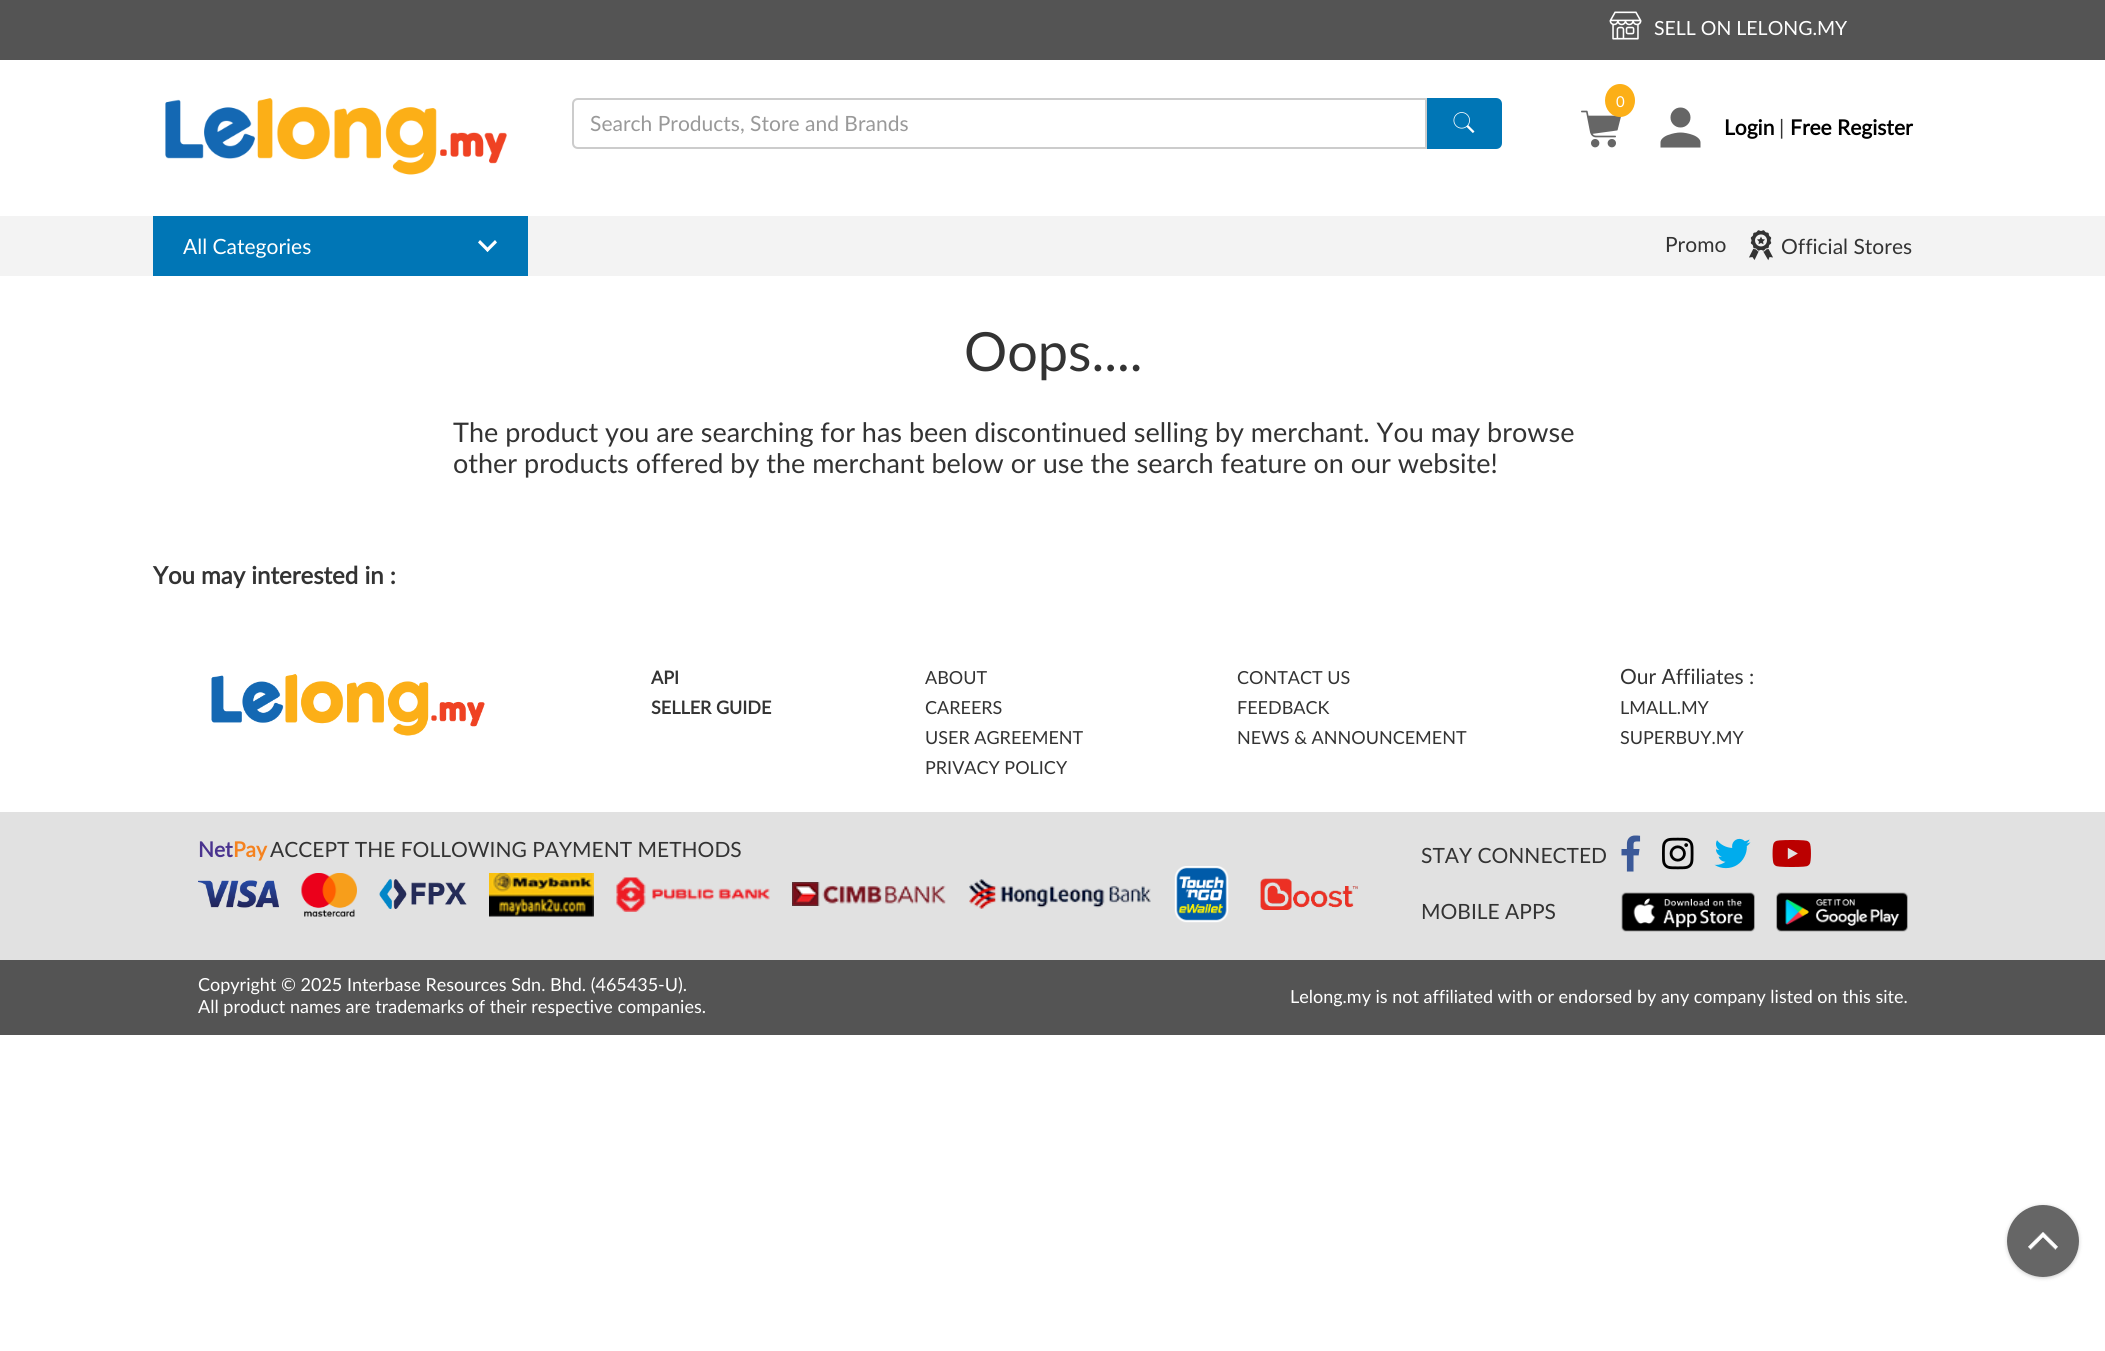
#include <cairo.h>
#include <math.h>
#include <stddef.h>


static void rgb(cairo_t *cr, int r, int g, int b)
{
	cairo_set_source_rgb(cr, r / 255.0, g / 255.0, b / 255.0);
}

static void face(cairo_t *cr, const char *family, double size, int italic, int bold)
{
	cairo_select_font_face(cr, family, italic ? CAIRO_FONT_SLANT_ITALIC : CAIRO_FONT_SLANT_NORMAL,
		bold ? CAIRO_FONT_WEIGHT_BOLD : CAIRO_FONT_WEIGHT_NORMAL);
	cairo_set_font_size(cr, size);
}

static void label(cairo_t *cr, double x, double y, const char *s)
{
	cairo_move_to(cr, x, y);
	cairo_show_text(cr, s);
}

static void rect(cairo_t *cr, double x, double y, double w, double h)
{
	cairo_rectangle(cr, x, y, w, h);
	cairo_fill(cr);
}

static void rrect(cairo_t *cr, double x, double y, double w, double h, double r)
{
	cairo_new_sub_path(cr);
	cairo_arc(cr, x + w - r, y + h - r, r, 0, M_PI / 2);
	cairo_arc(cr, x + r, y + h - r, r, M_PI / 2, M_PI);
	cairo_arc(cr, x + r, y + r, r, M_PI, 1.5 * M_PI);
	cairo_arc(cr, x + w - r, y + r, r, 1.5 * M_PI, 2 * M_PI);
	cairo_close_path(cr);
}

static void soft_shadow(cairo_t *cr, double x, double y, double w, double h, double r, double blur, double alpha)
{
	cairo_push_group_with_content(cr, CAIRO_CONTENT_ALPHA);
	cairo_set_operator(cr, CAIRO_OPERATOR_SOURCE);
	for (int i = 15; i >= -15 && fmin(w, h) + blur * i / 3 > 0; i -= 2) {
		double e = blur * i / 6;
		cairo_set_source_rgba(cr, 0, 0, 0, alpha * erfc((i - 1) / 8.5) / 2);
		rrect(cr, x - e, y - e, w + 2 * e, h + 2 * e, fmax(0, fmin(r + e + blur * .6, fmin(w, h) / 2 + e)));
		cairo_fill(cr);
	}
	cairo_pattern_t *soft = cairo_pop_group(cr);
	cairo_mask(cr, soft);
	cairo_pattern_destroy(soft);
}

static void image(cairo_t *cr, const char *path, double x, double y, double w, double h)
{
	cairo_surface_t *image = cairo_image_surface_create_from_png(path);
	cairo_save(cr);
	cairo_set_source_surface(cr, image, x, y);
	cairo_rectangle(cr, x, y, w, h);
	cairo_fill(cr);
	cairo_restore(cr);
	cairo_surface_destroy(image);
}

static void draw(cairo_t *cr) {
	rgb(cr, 255, 255, 255);
	cairo_paint(cr);
	rgb(cr, 84, 84, 84);
	rect(cr, 0, 0, 2105, 60);
	image(cr, "image0.png", 1609, 11, 33, 29);
	face(cr, "Lato", 19.5, 0, 0);
	rgb(cr, 255, 255, 255);
	label(cr, 1654, 35, "SELL ON LELONG.MY");
	image(cr, "image1.png", 165, 98, 342, 77);
	cairo_new_path(cr);
	cairo_move_to(cr, 578, 99);
	cairo_line_to(cr, 1426, 99);
	cairo_line_to(cr, 1426, 148);
	cairo_line_to(cr, 578, 148);
	cairo_curve_to(cr, 575, 148, 573, 146, 573, 143);
	cairo_line_to(cr, 573, 104);
	cairo_curve_to(cr, 573, 101, 575, 99, 578, 99);
	cairo_close_path(cr);
	rgb(cr, 204, 204, 204);
	cairo_stroke(cr);
	face(cr, "Lato", 21, 0, 0);
	rgb(cr, 153, 153, 153);
	label(cr, 590, 131, "Search Products, Store and Brands");
	rgb(cr, 0, 118, 182);
	cairo_new_path(cr);
	cairo_move_to(cr, 1427, 98);
	cairo_line_to(cr, 1496, 98);
	cairo_curve_to(cr, 1499.5, 98, 1502, 100.5, 1502, 104);
	cairo_line_to(cr, 1502, 143);
	cairo_curve_to(cr, 1502, 146.5, 1499.5, 149, 1496, 149);
	cairo_line_to(cr, 1427, 149);
	cairo_close_path(cr);
	cairo_fill(cr);
	image(cr, "image2.png", 1453, 112, 22, 21);
	image(cr, "image3.png", 1581, 110, 40, 38);
	rgb(cr, 252, 175, 23);
	cairo_new_path(cr);
	cairo_move_to(cr, 1620, 84);
	cairo_curve_to(cr, 1628.5, 84, 1635, 91.5, 1635, 100.5);
	cairo_curve_to(cr, 1635, 109.5, 1628.5, 117, 1620, 117);
	cairo_curve_to(cr, 1611.5, 117, 1605, 109.5, 1605, 100.5);
	cairo_curve_to(cr, 1605, 91.5, 1611.5, 84, 1620, 84);
	cairo_close_path(cr);
	cairo_fill(cr);
	face(cr, "Lato", 15, 0, 0);
	rgb(cr, 255, 255, 255);
	label(cr, 1616, 107, "0");
	image(cr, "image4.png", 1660, 107, 41, 41);
	face(cr, "Lato", 21, 0, 1);
	rgb(cr, 0, 0, 0);
	label(cr, 1724, 135, "Login");
	face(cr, "Lato", 21, 0, 0);
	rgb(cr, 51, 51, 51);
	label(cr, 1779, 135, "|");
	face(cr, "Lato", 21, 0, 1);
	rgb(cr, 0, 0, 0);
	label(cr, 1790, 135, "Free Register");
	rgb(cr, 243, 243, 243);
	rect(cr, 0, 216, 2105, 60);
	rgb(cr, 0, 118, 182);
	rect(cr, 153, 216, 375, 60);
	face(cr, "Lato", 21, 0, 0);
	rgb(cr, 255, 255, 255);
	label(cr, 183, 254, "All Categories");
	cairo_new_path(cr);
	cairo_move_to(cr, 480, 240);
	cairo_line_to(cr, 489.5, 249.5);
	cairo_line_to(cr, 487.5, 252);
	cairo_line_to(cr, 478, 242.5);
	cairo_close_path(cr);
	cairo_fill(cr);
	cairo_new_path(cr);
	cairo_move_to(cr, 485.5, 249.5);
	cairo_line_to(cr, 495, 240);
	cairo_line_to(cr, 497, 242.5);
	cairo_line_to(cr, 487.5, 252);
	cairo_close_path(cr);
	cairo_fill(cr);
	rgb(cr, 51, 51, 51);
	label(cr, 1665, 252, "Promo");
	image(cr, "image5.png", 1749, 230, 24, 31);
	label(cr, 1781, 254, "Official Stores");
	face(cr, "Lato", 54, 0, 0);
	label(cr, 964, 371, "Oops....");
	face(cr, "Lato", 27, 0, 0);
	label(cr, 453, 442, "The product you are searching for has been discontinued selling by merchant. You may browse");
	label(cr, 453, 473, "other products offered by the merchant below or use the search feature on our website!");
	face(cr, "Lato", 24, 0, 1);
	label(cr, 153, 584, "You may interested in :");
	cairo_save(cr);
	cairo_set_fill_rule(cr, CAIRO_FILL_RULE_EVEN_ODD);
	cairo_new_path(cr);
	cairo_move_to(cr, 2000, 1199);
	cairo_line_to(cr, 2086, 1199);
	cairo_line_to(cr, 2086, 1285);
	cairo_line_to(cr, 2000, 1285);
	cairo_close_path(cr);
	cairo_move_to(cr, 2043, 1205);
	cairo_curve_to(cr, 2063, 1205, 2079, 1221, 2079, 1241);
	cairo_curve_to(cr, 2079, 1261, 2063, 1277, 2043, 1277);
	cairo_curve_to(cr, 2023, 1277, 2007, 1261, 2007, 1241);
	cairo_curve_to(cr, 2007, 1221, 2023, 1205, 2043, 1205);
	cairo_close_path(cr);
	cairo_clip(cr);
	rgb(cr, 0, 0, 0);
	soft_shadow(cr, 2007, 1206, 72, 72, 36, 2, 0.2);
	cairo_restore(cr);
	cairo_set_source_rgba(cr, 0, 0, 0, 0.6);
	cairo_arc(cr, 2043, 1241, 36, 0, 2 * M_PI);
	cairo_fill(cr);
	image(cr, "image6.png", 2028, 1232, 30, 18);
	image(cr, "image7.png", 211, 674, 274, 62);
	face(cr, "Lato", 18, 0, 1);
	rgb(cr, 51, 51, 51);
	label(cr, 651, 684, "API");
	label(cr, 651, 714, "SELLER GUIDE");
	face(cr, "Lato", 18, 0, 0);
	label(cr, 925, 684, "ABOUT");
	label(cr, 925, 714, "CAREERS");
	label(cr, 925, 744, "USER AGREEMENT");
	label(cr, 925, 774, "PRIVACY POLICY");
	label(cr, 1237, 684, "CONTACT US");
	label(cr, 1237, 714, "FEEDBACK");
	label(cr, 1237, 744, "NEWS & ANNOUNCEMENT");
	face(cr, "Lato", 21, 0, 0);
	label(cr, 1620, 684, "Our Affiliates :");
	face(cr, "Lato", 18, 0, 0);
	label(cr, 1620, 714, "LMALL.MY");
	label(cr, 1620, 744, "SUPERBUY.MY");
	rgb(cr, 225, 225, 225);
	rect(cr, 0, 812, 2105, 148);
	face(cr, "Lato", 21, 0, 1);
	rgb(cr, 74, 51, 143);
	label(cr, 198, 857, "Net");
	rgb(cr, 245, 130, 31);
	label(cr, 233, 857, "Pay");
	face(cr, "Lato", 21, 0, 0);
	rgb(cr, 51, 51, 51);
	label(cr, 270, 857, "ACCEPT THE FOLLOWING PAYMENT METHODS");
	image(cr, "image8.png", 198, 880, 81, 28);
	image(cr, "image9.png", 301, 873, 56, 44);
	image(cr, "image10.png", 379, 879, 88, 30);
	image(cr, "image11.png", 489, 873, 105, 44);
	image(cr, "image12.png", 616, 877, 154, 35);
	image(cr, "image13.png", 792, 882, 154, 24);
	image(cr, "image14.png", 969, 879, 182, 30);
	image(cr, "image15.png", 1174, 866, 55, 57);
	image(cr, "image16.png", 1260, 878, 98, 32);
	label(cr, 1421, 863, "STAY CONNECTED");
	image(cr, "image17.png", 1621, 835, 20, 37);
	image(cr, "image18.png", 1662, 837, 32, 33);
	image(cr, "image19.png", 1714, 838, 37, 31);
	image(cr, "image20.png", 1772, 840, 39, 27);
	label(cr, 1421, 919, "MOBILE APPS");
	image(cr, "image21.png", 1621, 892, 134, 40);
	image(cr, "image22.png", 1776, 892, 132, 40);
	rgb(cr, 84, 84, 84);
	rect(cr, 0, 960, 2105, 75);
	face(cr, "Lato", 18, 0, 0);
	rgb(cr, 255, 255, 255);
	label(cr, 198, 991, "Copyright © 2025 Interbase Resources Sdn. Bhd. (465435-U).");
	label(cr, 198, 1013, "All product names are trademarks of their respective companies.");
	label(cr, 1290, 1003, "Lelong.my is not affiliated with or endorsed by any company listed on this site.");
}

int main(void) {
	cairo_surface_t *surface = cairo_image_surface_create(CAIRO_FORMAT_RGB24, 2105, 1351);
	cairo_t *cr = cairo_create(surface);
	cairo_font_options_t *options = cairo_font_options_create();
	cairo_font_options_set_hint_metrics(options, CAIRO_HINT_METRICS_OFF);
	cairo_font_options_set_hint_style(options, CAIRO_HINT_STYLE_NONE);
	cairo_set_font_options(cr, options);
	cairo_set_miter_limit(cr, 4);
	draw(cr);
	cairo_surface_write_to_png(surface, "render.png");
	cairo_font_options_destroy(options);
	cairo_destroy(cr);
	cairo_surface_destroy(surface);
	return 0;
}
